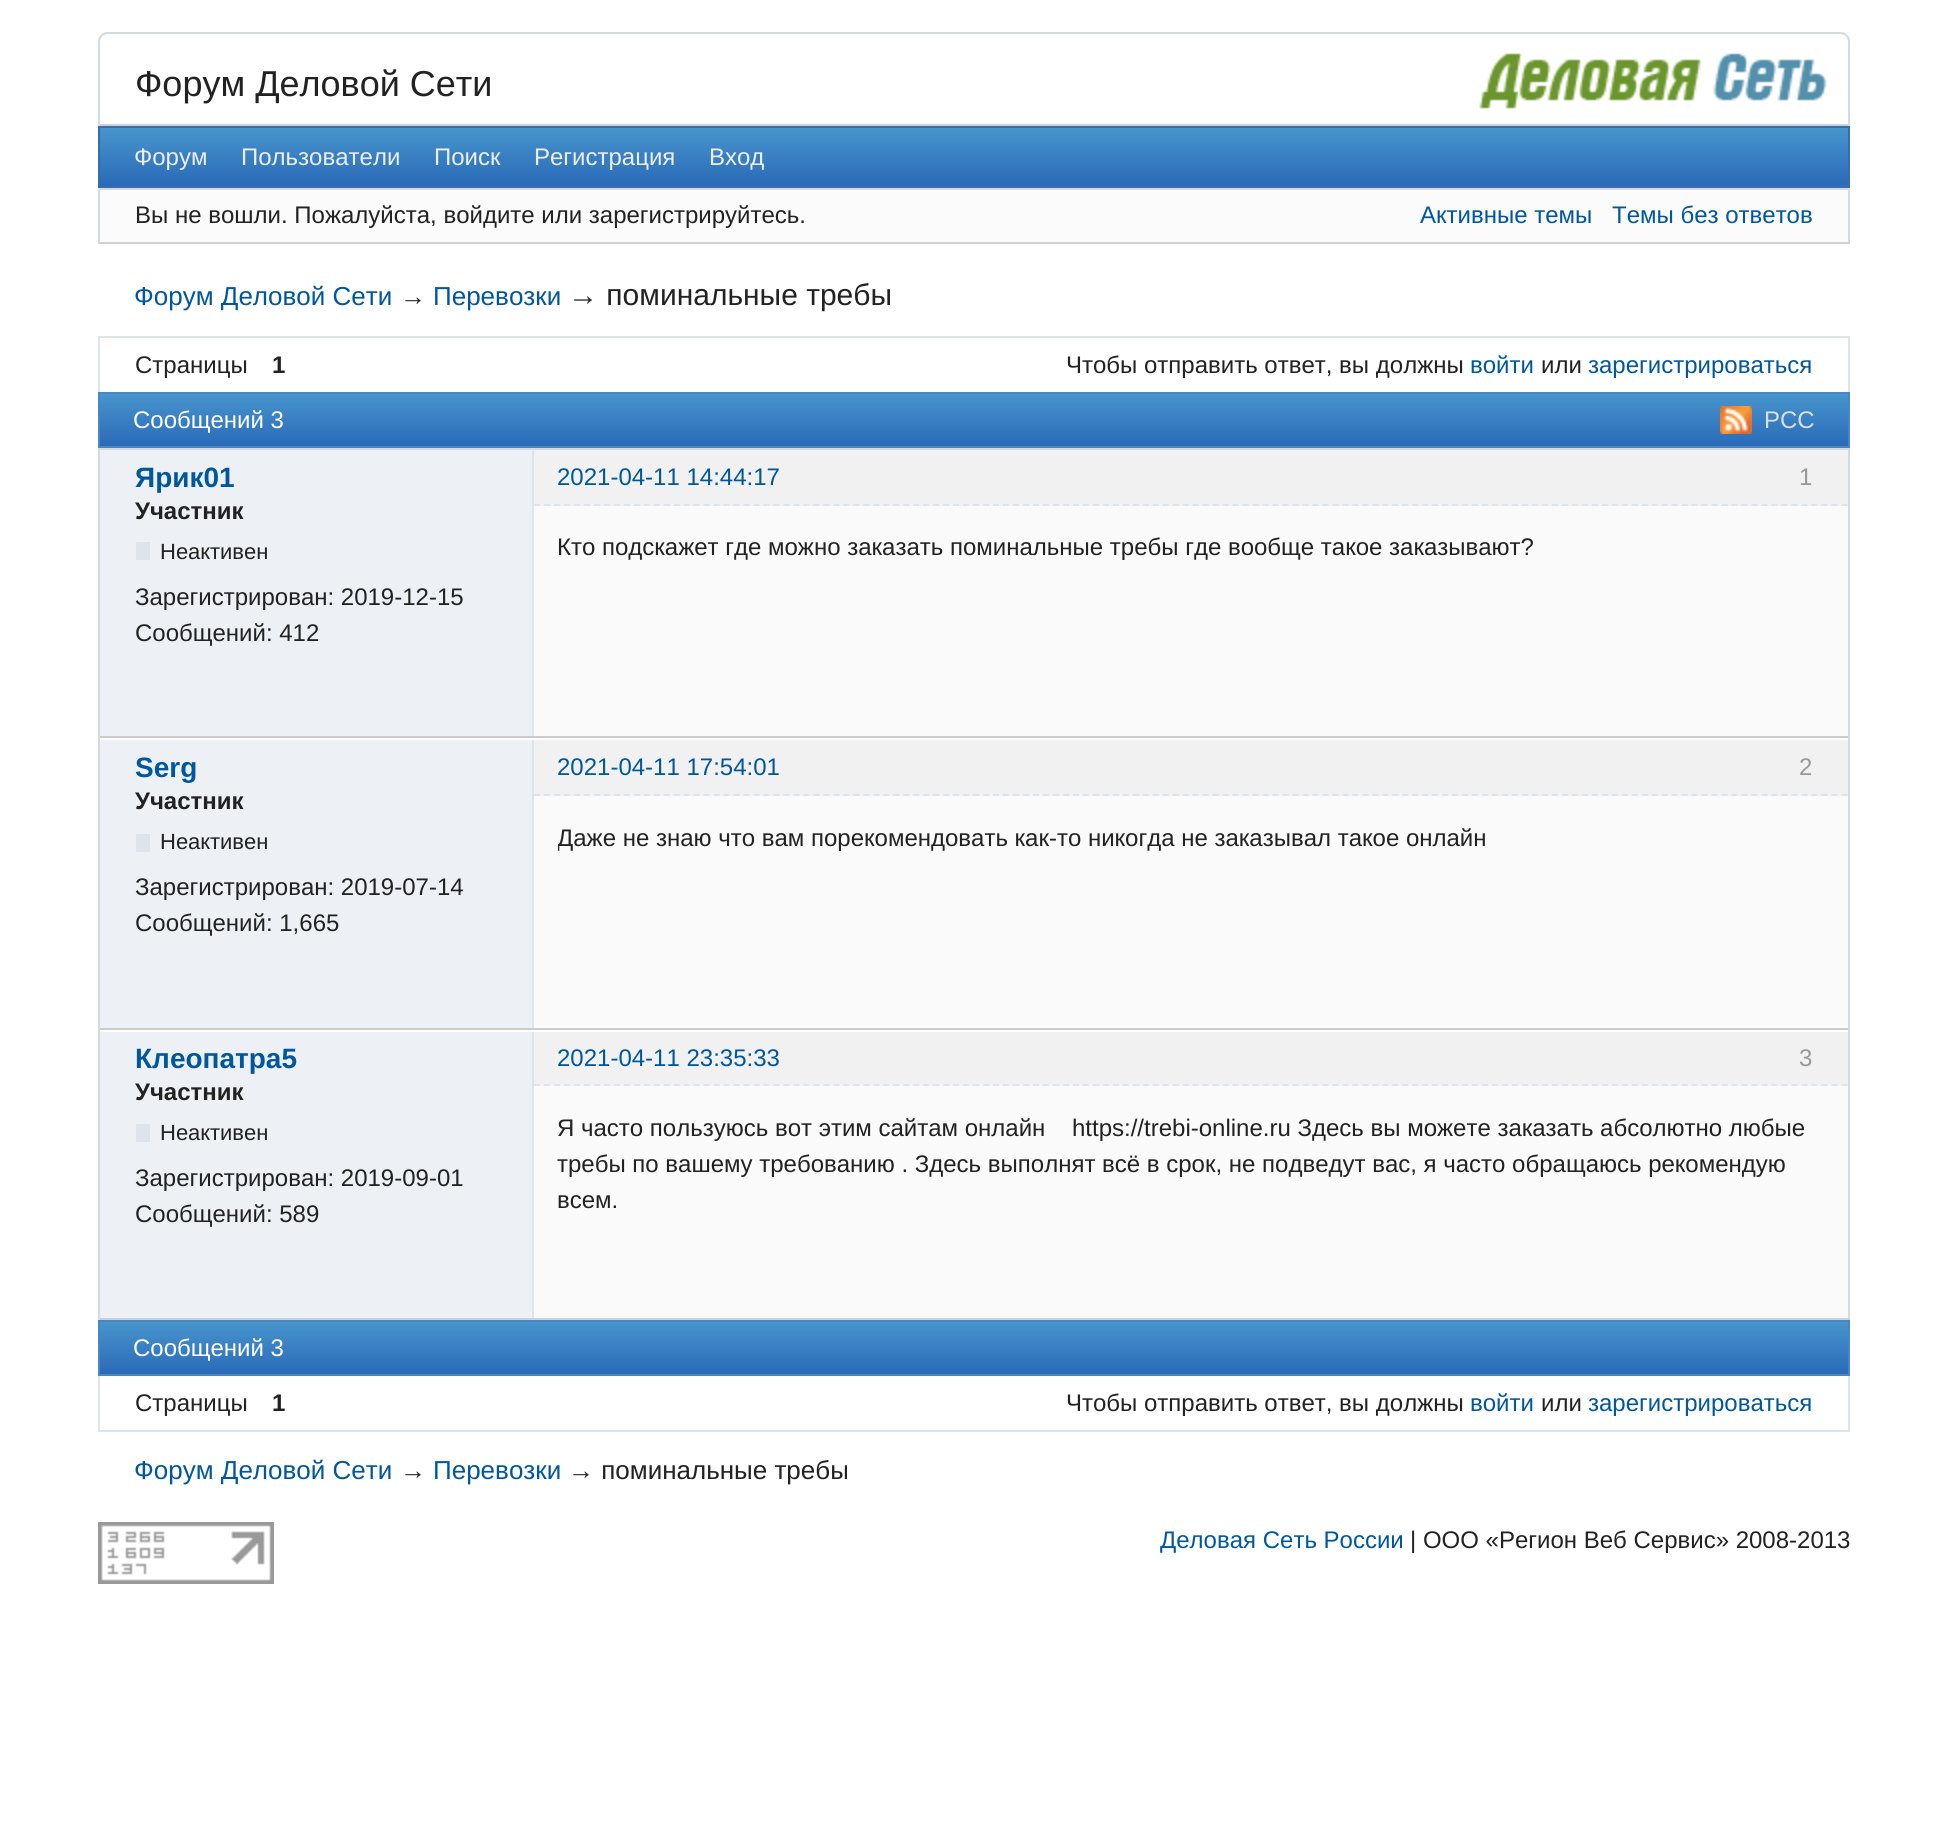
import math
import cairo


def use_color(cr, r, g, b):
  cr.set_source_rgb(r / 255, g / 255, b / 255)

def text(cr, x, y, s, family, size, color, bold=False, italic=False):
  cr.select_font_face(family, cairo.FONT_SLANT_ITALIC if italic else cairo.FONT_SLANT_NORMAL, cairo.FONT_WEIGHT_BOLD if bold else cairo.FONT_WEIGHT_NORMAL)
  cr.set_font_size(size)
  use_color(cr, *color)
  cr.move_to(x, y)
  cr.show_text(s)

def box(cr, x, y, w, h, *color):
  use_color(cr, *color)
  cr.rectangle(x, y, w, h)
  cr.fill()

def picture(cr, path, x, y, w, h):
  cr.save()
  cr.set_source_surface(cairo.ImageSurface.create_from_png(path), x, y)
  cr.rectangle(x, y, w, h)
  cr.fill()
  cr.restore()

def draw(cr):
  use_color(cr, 255, 255, 255)
  cr.paint()
  picture(cr, "img_01.png", 1479, 53, 348, 56)
  use_color(cr, 211, 218, 225)
  cr.new_path()
  cr.move_to(108, 32)
  cr.curve_to(105, 32, 102, 33, 101, 35)
  cr.line_to(102, 36)
  cr.curve_to(104, 35, 106, 34, 108, 34)
  cr.line_to(1840, 34)
  cr.curve_to(1842, 34, 1844, 35, 1846, 36)
  cr.line_to(1847, 35)
  cr.curve_to(1846, 33, 1843, 32, 1840, 32)
  cr.close_path()
  cr.fill()
  cr.new_path()
  cr.move_to(1850, 126)
  cr.line_to(1850, 42)
  cr.curve_to(1850, 39, 1849, 36, 1847, 35)
  cr.line_to(1846, 36)
  cr.curve_to(1847, 38, 1848, 40, 1848, 42)
  cr.line_to(1848, 124)
  cr.close_path()
  cr.fill()
  use_color(cr, 203, 209, 216)
  cr.new_path()
  cr.move_to(1850, 126)
  cr.line_to(1848, 124)
  cr.line_to(100, 124)
  cr.line_to(98, 126)
  cr.close_path()
  cr.fill()
  use_color(cr, 211, 218, 225)
  cr.new_path()
  cr.move_to(98, 126)
  cr.line_to(100, 124)
  cr.line_to(100, 42)
  cr.curve_to(100, 40, 101, 38, 102, 36)
  cr.line_to(101, 35)
  cr.curve_to(99, 36, 98, 39, 98, 42)
  cr.close_path()
  cr.fill()
  gradient = cairo.LinearGradient(974, 186, 974, 128)
  gradient.add_color_stop_rgba(0, 0.165, 0.416, 0.722, 1)
  gradient.add_color_stop_rgba(1, 0.278, 0.584, 0.8, 1)
  cr.set_source(gradient)
  cr.rectangle(100, 128, 1748, 58)
  cr.fill()
  cr.rectangle(99, 127, 1750, 60)
  use_color(cr, 55, 109, 170)
  cr.stroke()
  box(cr, 100, 190, 1748, 52, 251, 251, 251)
  box(cr, 98, 188, 1752, 2, 211, 218, 225)
  box(cr, 1848, 188, 2, 56, 211, 218, 225)
  box(cr, 98, 242, 1752, 2, 203, 209, 216)
  box(cr, 98, 188, 2, 56, 211, 218, 225)
  box(cr, 98, 336, 1752, 2, 221, 228, 235)
  box(cr, 1848, 336, 2, 56, 221, 228, 235)
  box(cr, 98, 336, 2, 56, 221, 228, 235)
  gradient = cairo.LinearGradient(974, 446, 974, 394)
  gradient.add_color_stop_rgba(0, 0.165, 0.416, 0.722, 1)
  gradient.add_color_stop_rgba(1, 0.278, 0.584, 0.8, 1)
  cr.set_source(gradient)
  cr.rectangle(100, 394, 1748, 52)
  cr.fill()
  cr.rectangle(99, 393, 1750, 54)
  use_color(cr, 74, 134, 193)
  cr.stroke()
  picture(cr, "img_02.png", 1720, 406, 32, 28)
  box(cr, 98, 448, 1752, 2, 211, 218, 225)
  box(cr, 1848, 448, 2, 872, 211, 218, 225)
  box(cr, 98, 1318, 1752, 2, 203, 209, 216)
  box(cr, 98, 448, 2, 872, 211, 218, 225)
  box(cr, 100, 450, 432, 286, 237, 241, 245)
  box(cr, 100, 736, 1748, 2, 204, 204, 204)
  box(cr, 534, 506, 1314, 230, 250, 250, 250)
  box(cr, 532, 450, 2, 286, 221, 228, 235)
  box(cr, 534, 450, 1314, 56, 241, 241, 241)
  cr.new_path()
  cr.move_to(534, 505)
  cr.line_to(1848, 505)
  use_color(cr, 221, 228, 235)
  cr.set_dash([6, 3.98])
  cr.stroke()
  box(cr, 136, 542, 14, 18, 221, 228, 235)
  box(cr, 100, 740, 432, 288, 237, 241, 245)
  box(cr, 100, 1028, 1748, 2, 204, 204, 204)
  box(cr, 534, 796, 1314, 232, 250, 250, 250)
  box(cr, 532, 740, 2, 288, 221, 228, 235)
  box(cr, 534, 740, 1314, 56, 241, 241, 241)
  cr.new_path()
  cr.move_to(534, 795)
  cr.line_to(1848, 795)
  use_color(cr, 221, 228, 235)
  cr.stroke()
  box(cr, 136, 834, 14, 18, 221, 228, 235)
  box(cr, 100, 1032, 432, 286, 237, 241, 245)
  box(cr, 534, 1086, 1314, 232, 250, 250, 250)
  box(cr, 532, 1032, 2, 286, 221, 228, 235)
  box(cr, 534, 1032, 1314, 54, 241, 241, 241)
  cr.new_path()
  cr.move_to(534, 1085)
  cr.line_to(1848, 1085)
  use_color(cr, 221, 228, 235)
  cr.stroke()
  box(cr, 136, 1124, 14, 18, 221, 228, 235)
  gradient = cairo.LinearGradient(974, 1374, 974, 1322)
  gradient.add_color_stop_rgba(0, 0.165, 0.416, 0.722, 1)
  gradient.add_color_stop_rgba(1, 0.278, 0.584, 0.8, 1)
  cr.set_source(gradient)
  cr.rectangle(100, 1322, 1748, 52)
  cr.fill()
  cr.rectangle(99, 1321, 1750, 54)
  use_color(cr, 74, 134, 193)
  cr.set_dash([])
  cr.stroke()
  box(cr, 1848, 1376, 2, 56, 221, 228, 235)
  box(cr, 98, 1430, 1752, 2, 221, 228, 235)
  box(cr, 98, 1376, 2, 56, 221, 228, 235)
  picture(cr, "img_03.png", 98, 1522, 176, 62)
  text(cr, 135, 96, "Форум Деловой Сети", "Liberation Sans", 36, (34, 34, 34))
  text(cr, 134, 165, "Форум", "Liberation Sans", 24, (238, 238, 238))
  text(cr, 241, 165, "Пользователи", "Liberation Sans", 24, (238, 238, 238))
  text(cr, 434, 165, "Поиск", "Liberation Sans", 24, (238, 238, 238))
  text(cr, 534, 165, "Регистрация", "Liberation Sans", 24, (238, 238, 238))
  text(cr, 709, 165, "Вход", "Liberation Sans", 24, (238, 238, 238))
  text(cr, 135, 223, "Вы не вошли. Пожалуйста, войдите или зарегистрируйтесь.", "Liberation Sans", 24, (34, 34, 34))
  text(cr, 1420, 223, "Активные темы", "Liberation Sans", 24, (0, 87, 156))
  text(cr, 1612, 223, "Темы без ответов", "Liberation Sans", 24, (0, 87, 156))
  text(cr, 134, 305, "Форум Деловой Сети", "Liberation Sans", 26, (0, 87, 156))
  text(cr, 400, 305, "→", "Liberation Sans", 26, (34, 34, 34))
  text(cr, 433, 305, "Перевозки", "Liberation Sans", 26, (0, 87, 156))
  text(cr, 568, 305, "→ поминальные требы", "Liberation Sans", 30, (34, 34, 34))
  text(cr, 135, 373, "Страницы", "Liberation Sans", 24, (34, 34, 34))
  text(cr, 272, 373, "1", "Liberation Sans", 24, (34, 34, 34), bold=True)
  text(cr, 1066, 373, "Чтобы отправить ответ, вы должны", "Liberation Sans", 24, (34, 34, 34))
  text(cr, 1470, 373, "войти", "Liberation Sans", 24, (0, 87, 156))
  text(cr, 1541, 373, "или", "Liberation Sans", 24, (34, 34, 34))
  text(cr, 1588, 373, "зарегистрироваться", "Liberation Sans", 24, (0, 87, 156))
  text(cr, 133, 428, "Сообщений 3", "Liberation Sans", 24, (255, 255, 255))
  text(cr, 1764, 428, "РСС", "Liberation Sans", 24, (221, 221, 221))
  text(cr, 135, 487, "Ярик01", "Liberation Sans", 28, (0, 87, 156), bold=True)
  text(cr, 557, 485, "2021-04-11 14:44:17", "Liberation Sans", 24, (0, 87, 156))
  text(cr, 1799, 485, "1", "Liberation Sans", 24, (153, 153, 153))
  text(cr, 135, 519, "Участник", "Liberation Sans", 24, (34, 34, 34), bold=True)
  text(cr, 160, 559, "Неактивен", "Liberation Sans", 22, (34, 34, 34))
  text(cr, 135, 605, "Зарегистрирован: 2019-12-15", "Liberation Sans", 24, (34, 34, 34))
  text(cr, 135, 641, "Сообщений: 412", "Liberation Sans", 24, (34, 34, 34))
  text(cr, 557, 555, "Кто подскажет где можно заказать поминальные требы где вообще такое заказывают?", "Liberation Sans", 24, (34, 34, 34))
  text(cr, 135, 777, "Serg", "Liberation Sans", 28, (0, 87, 156), bold=True)
  text(cr, 557, 775, "2021-04-11 17:54:01", "Liberation Sans", 24, (0, 87, 156))
  text(cr, 1799, 775, "2", "Liberation Sans", 24, (153, 153, 153))
  text(cr, 135, 809, "Участник", "Liberation Sans", 24, (34, 34, 34), bold=True)
  text(cr, 160, 849, "Неактивен", "Liberation Sans", 22, (34, 34, 34))
  text(cr, 135, 895, "Зарегистрирован: 2019-07-14", "Liberation Sans", 24, (34, 34, 34))
  text(cr, 135, 931, "Сообщений: 1,665", "Liberation Sans", 24, (34, 34, 34))
  cr.save()
  cr.rectangle(558, 812, 1254, 216)
  cr.clip()
  text(cr, 557, 846, "Даже не знаю что вам порекомендовать как-то никогда не заказывал такое онлайн", "Liberation Sans", 24, (34, 34, 34))
  cr.restore()
  text(cr, 135, 1068, "Клеопатра5", "Liberation Sans", 28, (0, 87, 156), bold=True)
  text(cr, 557, 1066, "2021-04-11 23:35:33", "Liberation Sans", 24, (0, 87, 156))
  text(cr, 1799, 1066, "3", "Liberation Sans", 24, (153, 153, 153))
  text(cr, 135, 1100, "Участник", "Liberation Sans", 24, (34, 34, 34), bold=True)
  text(cr, 160, 1140, "Неактивен", "Liberation Sans", 22, (34, 34, 34))
  text(cr, 135, 1186, "Зарегистрирован: 2019-09-01", "Liberation Sans", 24, (34, 34, 34))
  text(cr, 135, 1222, "Сообщений: 589", "Liberation Sans", 24, (34, 34, 34))
  text(cr, 557, 1136, "Я часто пользуюсь вот этим сайтам онлайн    https://trebi-online.ru Здесь вы можете заказать абсолютно любые", "Liberation Sans", 24, (34, 34, 34))
  text(cr, 557, 1172, "требы по вашему требованию . Здесь выполнят всё в срок, не подведут вас, я часто обращаюсь рекомендую", "Liberation Sans", 24, (34, 34, 34))
  text(cr, 557, 1208, "всем.", "Liberation Sans", 24, (34, 34, 34))
  text(cr, 133, 1356, "Сообщений 3", "Liberation Sans", 24, (255, 255, 255))
  text(cr, 135, 1411, "Страницы", "Liberation Sans", 24, (34, 34, 34))
  text(cr, 272, 1411, "1", "Liberation Sans", 24, (34, 34, 34), bold=True)
  text(cr, 1066, 1411, "Чтобы отправить ответ, вы должны", "Liberation Sans", 24, (34, 34, 34))
  text(cr, 1470, 1411, "войти", "Liberation Sans", 24, (0, 87, 156))
  text(cr, 1541, 1411, "или", "Liberation Sans", 24, (34, 34, 34))
  text(cr, 1588, 1411, "зарегистрироваться", "Liberation Sans", 24, (0, 87, 156))
  text(cr, 134, 1479, "Форум Деловой Сети", "Liberation Sans", 26, (0, 87, 156))
  text(cr, 400, 1479, "→", "Liberation Sans", 26, (34, 34, 34))
  text(cr, 433, 1479, "Перевозки", "Liberation Sans", 26, (0, 87, 156))
  text(cr, 568, 1479, "→ поминальные требы", "Liberation Sans", 26, (34, 34, 34))
  text(cr, 1160, 1548, "Деловая Сеть России", "Liberation Sans", 24, (0, 87, 156))
  text(cr, 1410, 1548, "| ООО «Регион Веб Сервис» 2008-2013", "Liberation Sans", 24, (34, 34, 34))


surface = cairo.ImageSurface(cairo.FORMAT_RGB24, 1947, 1824)
cr = cairo.Context(surface)
options = cairo.FontOptions()
options.set_hint_metrics(cairo.HINT_METRICS_OFF)
options.set_hint_style(cairo.HINT_STYLE_NONE)
cr.set_font_options(options)
cr.set_miter_limit(4)
draw(cr)
surface.write_to_png("out.png")
